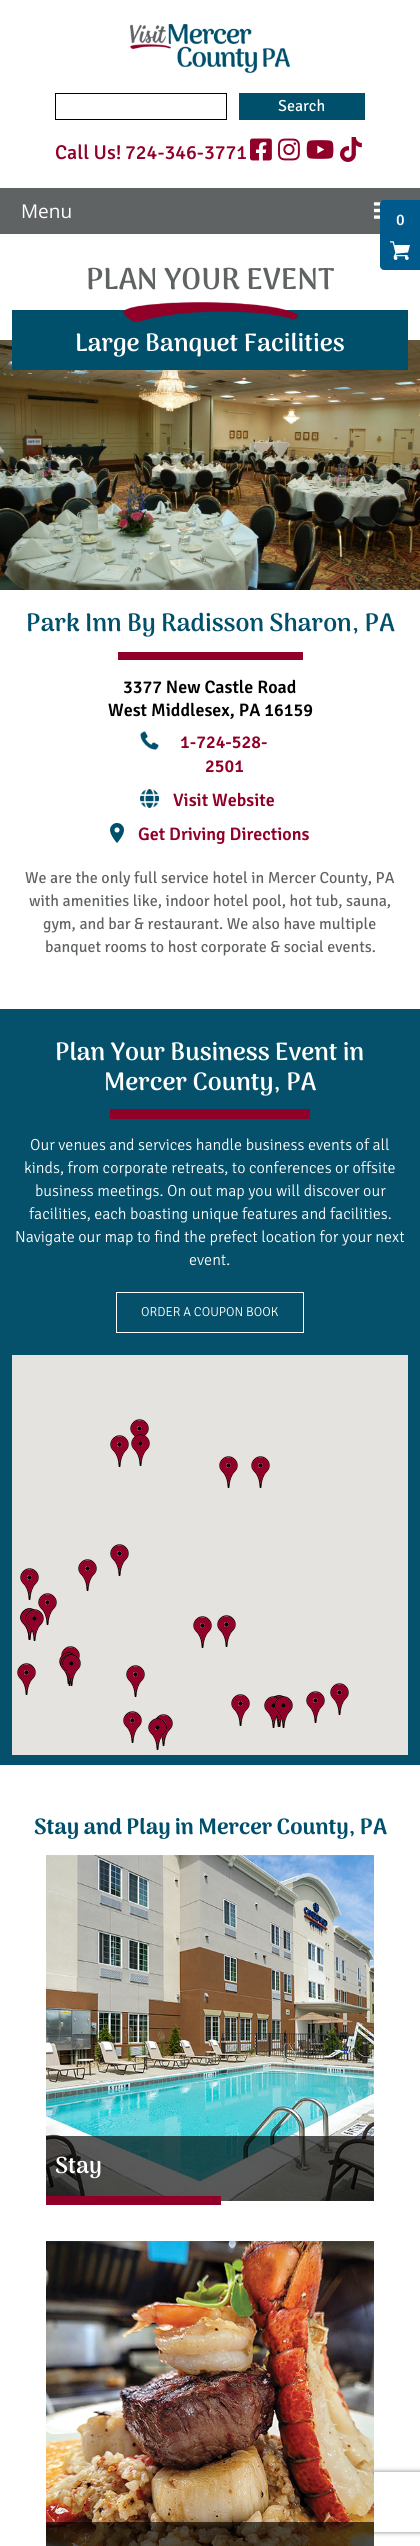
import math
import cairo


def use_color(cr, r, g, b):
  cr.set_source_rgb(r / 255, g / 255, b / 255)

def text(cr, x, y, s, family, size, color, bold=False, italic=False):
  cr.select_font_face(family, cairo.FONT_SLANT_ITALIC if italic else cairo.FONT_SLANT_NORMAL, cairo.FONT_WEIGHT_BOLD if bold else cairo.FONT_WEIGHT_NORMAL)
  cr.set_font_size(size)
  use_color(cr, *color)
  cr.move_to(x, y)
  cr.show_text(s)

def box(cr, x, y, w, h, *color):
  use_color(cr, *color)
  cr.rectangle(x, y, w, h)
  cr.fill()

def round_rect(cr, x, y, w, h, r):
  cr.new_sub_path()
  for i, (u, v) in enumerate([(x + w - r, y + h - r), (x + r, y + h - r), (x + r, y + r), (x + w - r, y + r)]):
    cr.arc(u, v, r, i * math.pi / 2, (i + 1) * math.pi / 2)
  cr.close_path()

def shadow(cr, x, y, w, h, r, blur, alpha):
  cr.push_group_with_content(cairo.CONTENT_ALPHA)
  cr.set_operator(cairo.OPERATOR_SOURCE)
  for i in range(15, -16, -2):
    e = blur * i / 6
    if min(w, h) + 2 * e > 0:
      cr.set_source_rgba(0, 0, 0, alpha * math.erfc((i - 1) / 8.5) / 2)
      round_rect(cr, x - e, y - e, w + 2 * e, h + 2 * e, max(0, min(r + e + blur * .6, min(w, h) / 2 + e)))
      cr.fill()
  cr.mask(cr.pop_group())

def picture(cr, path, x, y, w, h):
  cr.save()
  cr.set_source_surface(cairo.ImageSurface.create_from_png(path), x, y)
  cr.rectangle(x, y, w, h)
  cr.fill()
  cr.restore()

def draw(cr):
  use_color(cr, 255, 255, 255)
  cr.paint()
  picture(cr, "img_01.png", 130, 24, 160, 49)
  cr.rectangle(55.5, 93.5, 171, 26)
  use_color(cr, 0, 0, 0)
  cr.set_line_width(1)
  cr.stroke()
  box(cr, 239, 93, 126, 27, 0, 79, 107)
  picture(cr, "img_02.png", 250, 138, 22, 23)
  picture(cr, "img_03.png", 278, 138, 22, 23)
  picture(cr, "img_04.png", 306, 140, 28, 19)
  picture(cr, "img_05.png", 340, 137, 22, 25)
  box(cr, 0, 188, 420, 46, 96, 99, 99)
  picture(cr, "img_06.png", 373, 202, 8, 17)
  use_color(cr, 0, 90, 139)
  cr.new_path()
  cr.move_to(384, 200)
  cr.line_to(420, 200)
  cr.line_to(420, 270)
  cr.line_to(384, 270)
  cr.curve_to(382, 270, 380, 268, 380, 266)
  cr.line_to(380, 204)
  cr.curve_to(380, 202, 382, 200, 384, 200)
  cr.close_path()
  cr.fill()
  picture(cr, "img_07.png", 390, 241, 20, 19)
  picture(cr, "img_09.png", 0, 340, 420, 250)
  box(cr, 12, 310, 396, 60, 0, 79, 107)
  picture(cr, "img_08.png", 123, 302, 175, 20)
  box(cr, 118, 652, 185, 8, 144, 0, 40)
  picture(cr, "img_10.png", 140, 731, 19, 19)
  picture(cr, "img_11.png", 140, 789, 19, 19)
  picture(cr, "img_12.png", 110, 823, 14, 20)
  box(cr, 0, 1009, 420, 756, 5, 80, 106)
  box(cr, 110, 1109, 200, 10, 144, 0, 40)
  cr.rectangle(116.5, 1292.5, 187, 40)
  use_color(cr, 255, 255, 255)
  cr.stroke()
  box(cr, 12, 1355, 396, 400, 229, 227, 223)
  picture(cr, "img_13.png", 130, 1419, 19, 27)
  picture(cr, "img_14.png", 110, 1435, 19, 32)
  picture(cr, "img_15.png", 131, 1434, 19, 32)
  picture(cr, "img_14.png", 219, 1456, 19, 32)
  picture(cr, "img_14.png", 251, 1456, 19, 32)
  picture(cr, "img_14.png", 20, 1568, 19, 32)
  picture(cr, "img_14.png", 78, 1559, 19, 32)
  picture(cr, "img_14.png", 110, 1544, 19, 32)
  picture(cr, "img_16.png", 20, 1608, 16, 32)
  picture(cr, "img_14.png", 38, 1593, 19, 32)
  picture(cr, "img_17.png", 20, 1608, 17, 32)
  picture(cr, "img_18.png", 25, 1609, 19, 32)
  picture(cr, "img_14.png", 193, 1616, 19, 32)
  picture(cr, "img_14.png", 217, 1615, 19, 32)
  picture(cr, "img_19.png", 61, 1646, 19, 16)
  picture(cr, "img_20.png", 59, 1652, 19, 32)
  picture(cr, "img_21.png", 60, 1654, 18, 32)
  picture(cr, "img_14.png", 17, 1663, 19, 32)
  picture(cr, "img_22.png", 62, 1654, 19, 32)
  picture(cr, "img_14.png", 126, 1665, 19, 32)
  picture(cr, "img_14.png", 231, 1694, 19, 32)
  picture(cr, "img_23.png", 271, 1695, 14, 32)
  picture(cr, "img_14.png", 306, 1691, 19, 32)
  picture(cr, "img_14.png", 330, 1683, 19, 32)
  picture(cr, "img_24.png", 271, 1695, 16, 32)
  picture(cr, "img_14.png", 123, 1711, 19, 32)
  picture(cr, "img_25.png", 155, 1714, 18, 32)
  picture(cr, "img_26.png", 264, 1696, 19, 32)
  picture(cr, "img_27.png", 274, 1696, 19, 32)
  picture(cr, "img_28.png", 148, 1718, 19, 32)
  picture(cr, "img_29.png", 46, 1855, 328, 346)
  cr.set_source_rgba(0, 0, 0, 0.65)
  cr.rectangle(46, 2136, 328, 65)
  cr.fill()
  box(cr, 46, 2196, 175, 9, 144, 0, 40)
  cr.save()
  cr.set_fill_rule(cairo.FILL_RULE_EVEN_ODD)
  cr.new_path()
  cr.move_to(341, 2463)
  cr.line_to(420, 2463)
  cr.line_to(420, 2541)
  cr.line_to(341, 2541)
  cr.close_path()
  cr.move_to(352, 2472)
  cr.line_to(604, 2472)
  cr.curve_to(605, 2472, 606, 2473, 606, 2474)
  cr.line_to(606, 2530)
  cr.curve_to(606, 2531, 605, 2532, 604, 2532)
  cr.line_to(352, 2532)
  cr.curve_to(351, 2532, 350, 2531, 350, 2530)
  cr.line_to(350, 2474)
  cr.curve_to(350, 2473, 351, 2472, 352, 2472)
  cr.close_path()
  cr.clip()
  use_color(cr, 128, 128, 128)
  shadow(cr, 350, 2472, 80, 60, 2, 2.5, 1)
  cr.restore()
  picture(cr, "img_30.png", 46, 2241, 328, 305)
  cr.set_source_rgba(0, 0, 0, 0.65)
  cr.rectangle(46, 2522, 328, 24)
  cr.fill()
  text(cr, 278, 111, "Search", "Signika Negative", 16, (255, 255, 255))
  text(cr, 55, 159, "Call Us!", "Signika Negative Medium", 20, (144, 0, 40))
  text(cr, 125, 159, "724-346-3771", "Signika Negative Medium", 20, (144, 0, 40))
  text(cr, 21, 218, "Menu", "Open Sans", 19, (255, 255, 255))
  text(cr, 396, 225, "0", "Signika Negative Medium", 16, (255, 255, 255))
  text(cr, 86, 289, "PLAN YOUR EVENT", "Arima SemiBold", 30, (96, 99, 99))
  text(cr, 75, 351, "Large Banquet Facilities", "Arima SemiBold", 25, (255, 255, 255))
  text(cr, 26, 631, "Park Inn By Radisson Sharon, PA", "Arima SemiBold", 25, (0, 79, 107))
  text(cr, 123, 693, "3377 New Castle Road", "Signika Negative SemiBold", 18, (0, 0, 0))
  text(cr, 108, 716, "West Middlesex, PA 16159", "Signika Negative SemiBold", 18, (0, 0, 0))
  text(cr, 180, 748, "1-724-528-", "Signika Negative SemiBold", 18, (144, 0, 40))
  text(cr, 205, 772, "2501", "Signika Negative SemiBold", 18, (144, 0, 40))
  text(cr, 173, 806, "Visit Website", "Signika Negative SemiBold", 18, (144, 0, 40))
  text(cr, 138, 840, "Get Driving Directions", "Signika Negative SemiBold", 18, (144, 0, 40))
  text(cr, 25, 883, "We are the only full service hotel in Mercer County, PA", "Signika Negative", 16, (96, 99, 99))
  text(cr, 29, 906, "with amenities like, indoor hotel pool, hot tub, sauna,", "Signika Negative", 16, (96, 99, 99))
  text(cr, 43, 929, "gym, and bar & restaurant. We also have multiple", "Signika Negative", 16, (96, 99, 99))
  text(cr, 45, 952, "banquet rooms to host corporate & social events.", "Signika Negative", 16, (96, 99, 99))
  text(cr, 55, 1060, "Plan Your Business Event in", "Arima SemiBold", 25, (255, 255, 255))
  text(cr, 104, 1090, "Mercer County, PA", "Arima SemiBold", 25, (255, 255, 255))
  text(cr, 30, 1150, "Our venues and services handle business events of all", "Signika Negative Light", 16, (255, 255, 255))
  text(cr, 24, 1173, "kinds, from corporate retreats, to conferences or offsite", "Signika Negative Light", 16, (255, 255, 255))
  text(cr, 35, 1196, "business meetings. On out map you will discover our", "Signika Negative Light", 16, (255, 255, 255))
  text(cr, 29, 1219, "facilities, each boasting unique features and facilities.", "Signika Negative Light", 16, (255, 255, 255))
  text(cr, 15, 1242, "Navigate our map to find the prefect location for your next", "Signika Negative Light", 16, (255, 255, 255))
  text(cr, 189, 1265, "event.", "Signika Negative Light", 16, (255, 255, 255))
  text(cr, 141, 1316, "ORDER A COUPON BOOK", "Signika Negative Light", 13, (255, 255, 255))
  text(cr, 34, 1834, "Stay and Play in Mercer County, PA", "Arima", 22, (0, 79, 107), bold=True)
  text(cr, 55, 2173, "Stay", "Arima SemiBold", 23, (255, 255, 255))


surface = cairo.ImageSurface(cairo.FORMAT_RGB24, 420, 2546)
cr = cairo.Context(surface)
options = cairo.FontOptions()
options.set_hint_metrics(cairo.HINT_METRICS_OFF)
options.set_hint_style(cairo.HINT_STYLE_NONE)
cr.set_font_options(options)
cr.set_miter_limit(4)
draw(cr)
surface.write_to_png("out.png")
